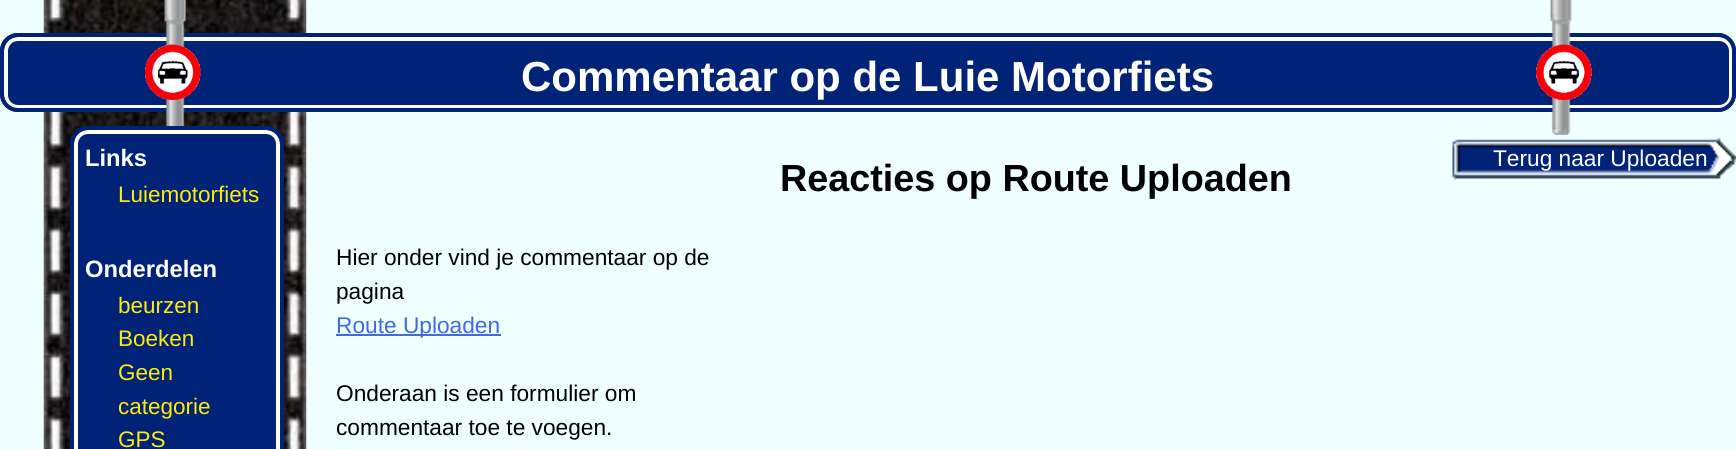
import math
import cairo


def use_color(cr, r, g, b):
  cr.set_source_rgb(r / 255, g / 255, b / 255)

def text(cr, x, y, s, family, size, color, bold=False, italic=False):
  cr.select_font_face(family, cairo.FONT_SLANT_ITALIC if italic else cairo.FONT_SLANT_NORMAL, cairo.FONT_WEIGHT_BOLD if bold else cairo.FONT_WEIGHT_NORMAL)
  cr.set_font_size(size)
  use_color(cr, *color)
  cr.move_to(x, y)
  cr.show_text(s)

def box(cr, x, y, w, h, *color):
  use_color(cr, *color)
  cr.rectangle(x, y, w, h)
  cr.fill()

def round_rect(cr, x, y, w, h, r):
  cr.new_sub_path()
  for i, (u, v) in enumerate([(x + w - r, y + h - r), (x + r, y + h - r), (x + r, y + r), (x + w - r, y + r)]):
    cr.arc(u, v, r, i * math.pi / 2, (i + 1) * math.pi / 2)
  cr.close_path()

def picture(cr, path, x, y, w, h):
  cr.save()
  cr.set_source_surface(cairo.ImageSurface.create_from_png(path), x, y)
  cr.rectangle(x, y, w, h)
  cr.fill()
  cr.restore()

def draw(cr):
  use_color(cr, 239, 255, 255)
  cr.paint()
  picture(cr, "img_01.png", 43, 0, 264, 449)
  use_color(cr, 0, 34, 119)
  round_rect(cr, 0, 33, 1736, 79, 18)
  cr.fill()
  round_rect(cr, 6, 39, 1725, 68, 12)
  use_color(cr, 255, 255, 240)
  cr.set_line_width(4)
  cr.stroke()
  round_rect(cr, 2, 35, 1732, 75, 16)
  use_color(cr, 0, 34, 119)
  cr.stroke()
  picture(cr, "img_02.png", 164, 0, 22, 126)
  picture(cr, "img_03.png", 145, 44, 56, 56)
  picture(cr, "img_05.png", 1550, 0, 22, 135)
  picture(cr, "img_04.png", 1536, 44, 56, 56)
  round_rect(cr, 70, 126, 214, 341, 18)
  cr.fill()
  round_rect(cr, 76, 132, 202, 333, 12)
  use_color(cr, 255, 255, 240)
  cr.stroke()
  round_rect(cr, 72, 128, 210, 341, 16)
  use_color(cr, 0, 34, 119)
  cr.stroke()
  picture(cr, "img_06.png", 1450, 137, 286, 44)
  box(cr, 336, 334, 165, 2, 65, 105, 225)
  text(cr, 521, 91, "Commentaar op de Luie Motorfiets", "Liberation Sans", 42, (255, 255, 255), bold=True)
  text(cr, 85, 166, "Links", "Liberation Sans", 23.75, (255, 255, 255), bold=True)
  text(cr, 118, 202, "Luiemotorfiets", "Liberation Sans", 22.5, (255, 235, 13))
  text(cr, 85, 277, "Onderdelen", "Liberation Sans", 23.75, (255, 255, 255), bold=True)
  text(cr, 118, 313, "beurzen", "Liberation Sans", 22.5, (255, 235, 13))
  text(cr, 118, 346, "Boeken", "Liberation Sans", 22.5, (255, 235, 13))
  text(cr, 118, 380, "Geen", "Liberation Sans", 22.5, (255, 235, 13))
  text(cr, 118, 414, "categorie", "Liberation Sans", 22.5, (255, 235, 13))
  text(cr, 118, 447, "GPS", "Liberation Sans", 22.5, (255, 235, 13))
  text(cr, 1493, 166, "Terug naar Uploaden", "Liberation Sans", 22.7, (255, 255, 255))
  text(cr, 336, 265, "Hier onder vind je commentaar op de", "Liberation Sans", 22.7, (0, 0, 0))
  text(cr, 336, 299, "pagina", "Liberation Sans", 22.7, (0, 0, 0))
  text(cr, 336, 333, "Route Uploaden", "Liberation Sans", 22.7, (65, 105, 225))
  text(cr, 336, 401, "Onderaan is een formulier om", "Liberation Sans", 22.7, (0, 0, 0))
  text(cr, 336, 435, "commentaar toe te voegen.", "Liberation Sans", 22.7, (0, 0, 0))
  text(cr, 780, 191, "Reacties op Route Uploaden", "Liberation Sans", 37.75, (0, 0, 0), bold=True)


surface = cairo.ImageSurface(cairo.FORMAT_RGB24, 1736, 449)
cr = cairo.Context(surface)
options = cairo.FontOptions()
options.set_hint_metrics(cairo.HINT_METRICS_OFF)
options.set_hint_style(cairo.HINT_STYLE_NONE)
cr.set_font_options(options)
cr.set_miter_limit(4)
draw(cr)
surface.write_to_png("out.png")
